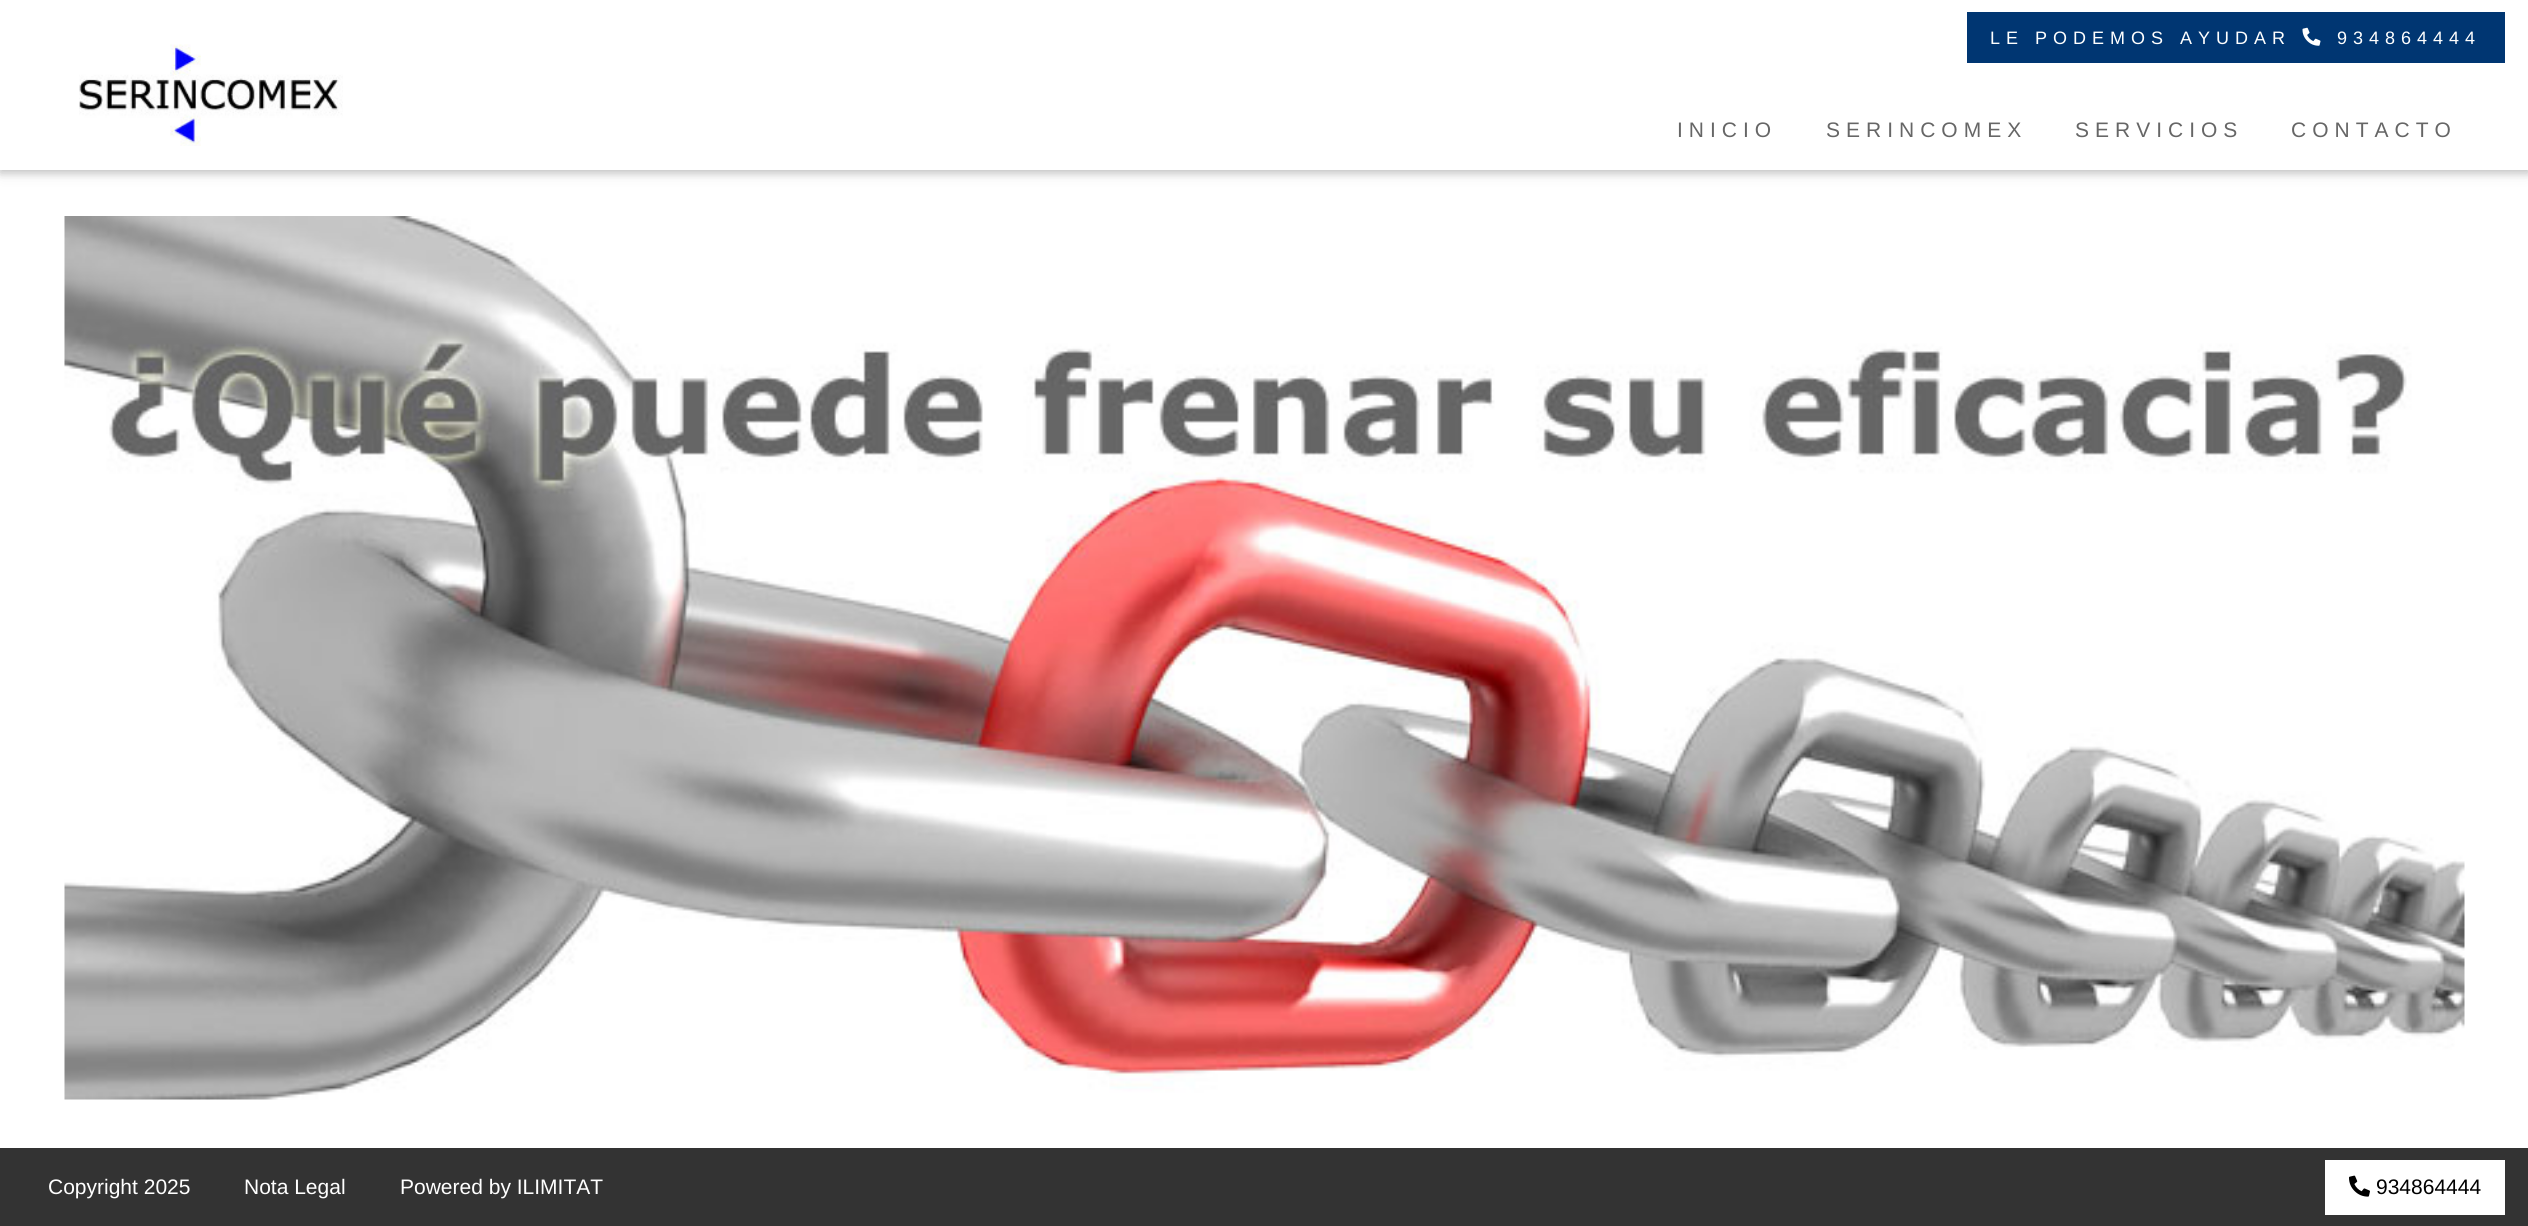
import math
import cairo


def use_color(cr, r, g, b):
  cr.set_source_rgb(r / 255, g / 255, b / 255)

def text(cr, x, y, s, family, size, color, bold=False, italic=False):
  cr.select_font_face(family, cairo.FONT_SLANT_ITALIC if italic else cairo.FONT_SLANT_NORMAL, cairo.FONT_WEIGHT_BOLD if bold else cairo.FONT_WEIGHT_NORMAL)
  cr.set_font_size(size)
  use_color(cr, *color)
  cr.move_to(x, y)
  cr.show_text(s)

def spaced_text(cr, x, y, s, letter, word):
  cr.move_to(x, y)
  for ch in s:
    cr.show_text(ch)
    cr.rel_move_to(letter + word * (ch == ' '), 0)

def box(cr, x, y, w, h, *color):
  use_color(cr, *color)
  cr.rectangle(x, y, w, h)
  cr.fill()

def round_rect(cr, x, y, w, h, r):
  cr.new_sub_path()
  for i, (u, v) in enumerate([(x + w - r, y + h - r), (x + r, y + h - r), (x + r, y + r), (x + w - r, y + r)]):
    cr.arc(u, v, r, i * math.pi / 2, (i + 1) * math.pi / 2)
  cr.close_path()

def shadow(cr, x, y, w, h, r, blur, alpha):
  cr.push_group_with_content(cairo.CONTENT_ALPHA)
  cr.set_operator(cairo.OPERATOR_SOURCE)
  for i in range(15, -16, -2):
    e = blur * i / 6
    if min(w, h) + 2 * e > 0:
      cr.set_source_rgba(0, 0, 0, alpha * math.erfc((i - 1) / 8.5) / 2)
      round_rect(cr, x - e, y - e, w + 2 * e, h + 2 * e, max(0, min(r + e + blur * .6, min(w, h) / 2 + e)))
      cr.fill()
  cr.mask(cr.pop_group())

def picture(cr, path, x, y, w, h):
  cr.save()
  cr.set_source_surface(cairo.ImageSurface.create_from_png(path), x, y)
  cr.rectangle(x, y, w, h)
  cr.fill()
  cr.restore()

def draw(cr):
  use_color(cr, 255, 255, 255)
  cr.paint()
  use_color(cr, 0, 0, 0)
  shadow(cr, 0, 3, 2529, 170, 0, 7.5, 0.12)
  shadow(cr, 0, 3, 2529, 170, 0, 4, 0.16)
  box(cr, 0, 0, 2528, 170, 255, 255, 255)
  box(cr, 1967, 12, 538, 51, 0, 54, 114)
  picture(cr, "img_01.png", 2302, 27, 19, 19)
  picture(cr, "img_02.png", 79, 44, 264, 102)
  picture(cr, "img_03.png", 64, 216, 2401, 884)
  box(cr, 0, 1148, 2528, 78, 51, 51, 51)
  box(cr, 2325, 1160, 180, 55, 255, 255, 255)
  picture(cr, "img_04.png", 2349, 1175, 21, 22)
  cr.select_font_face("Liberation Sans")
  cr.set_font_size(18)
  spaced_text(cr, 1990, 44, "LE PODEMOS AYUDAR", 6, 0)
  spaced_text(cr, 2337, 44, "934864444", 6, 0)
  cr.set_font_size(21)
  use_color(cr, 102, 102, 102)
  spaced_text(cr, 1677, 137, "INICIO", 6, 0)
  spaced_text(cr, 1826, 137, "SERINCOMEX", 6, 0)
  spaced_text(cr, 2075, 137, "SERVICIOS", 6, 0)
  spaced_text(cr, 2291, 137, "CONTACTO", 6, 0)
  text(cr, 48, 1194, "Copyright 2025", "Liberation Sans", 21, (255, 255, 255))
  text(cr, 244, 1194, "Nota Legal", "Liberation Sans", 21, (255, 255, 255))
  text(cr, 400, 1194, "Powered by ILIMITAT", "Liberation Sans", 21, (255, 255, 255))
  text(cr, 2376, 1194, "934864444", "Liberation Sans", 21, (0, 0, 0))


surface = cairo.ImageSurface(cairo.FORMAT_RGB24, 2528, 1226)
cr = cairo.Context(surface)
options = cairo.FontOptions()
options.set_hint_metrics(cairo.HINT_METRICS_OFF)
options.set_hint_style(cairo.HINT_STYLE_NONE)
cr.set_font_options(options)
cr.set_miter_limit(4)
draw(cr)
surface.write_to_png("out.png")
